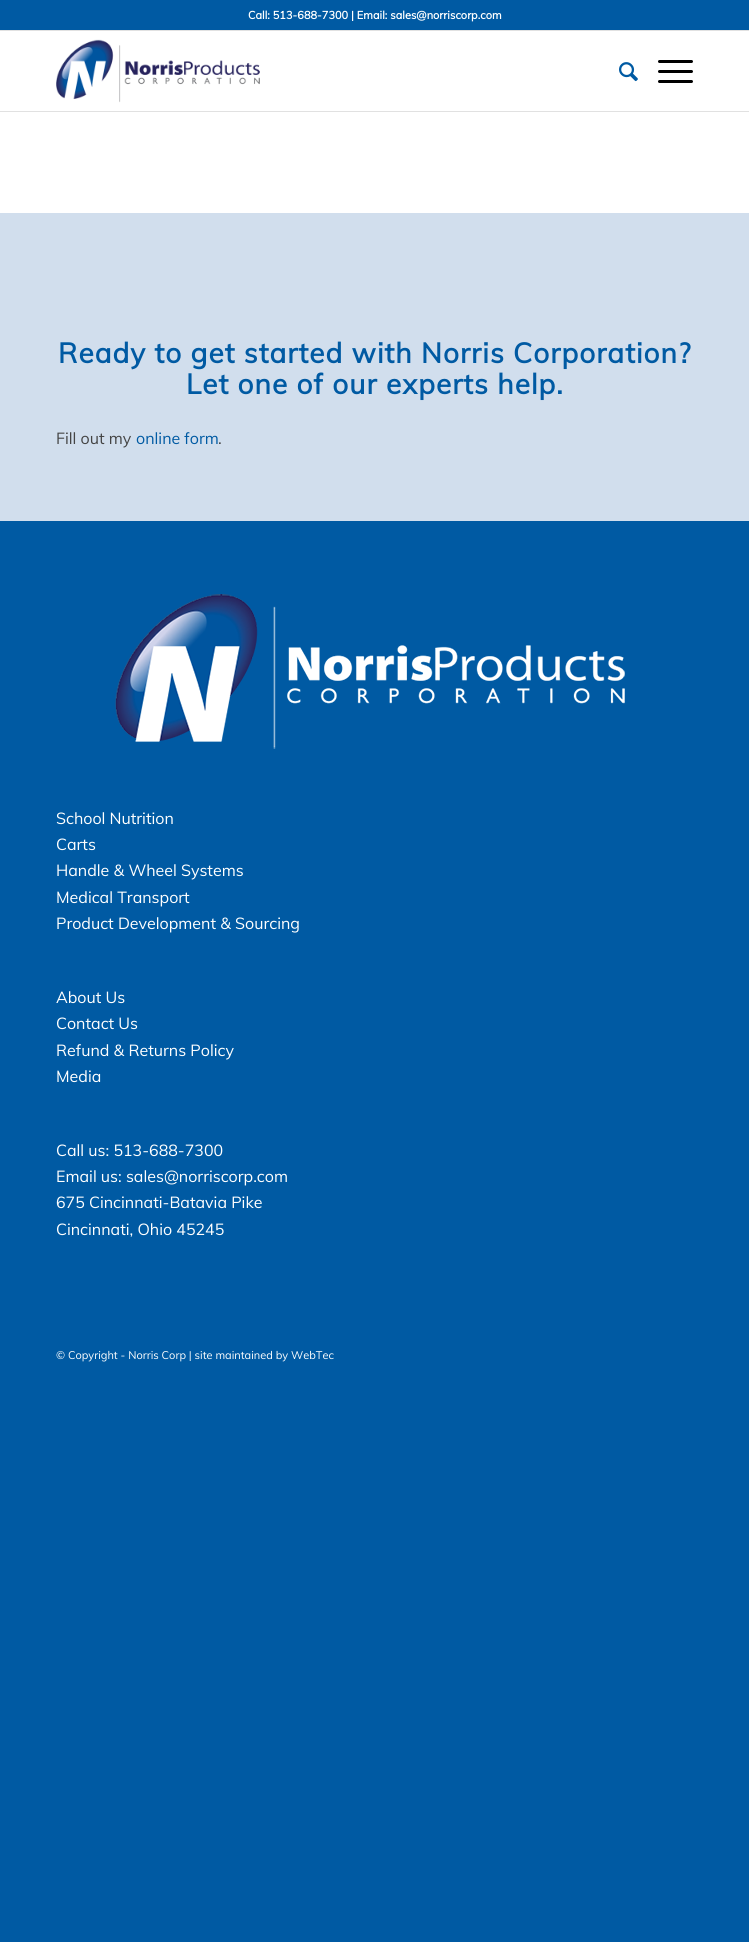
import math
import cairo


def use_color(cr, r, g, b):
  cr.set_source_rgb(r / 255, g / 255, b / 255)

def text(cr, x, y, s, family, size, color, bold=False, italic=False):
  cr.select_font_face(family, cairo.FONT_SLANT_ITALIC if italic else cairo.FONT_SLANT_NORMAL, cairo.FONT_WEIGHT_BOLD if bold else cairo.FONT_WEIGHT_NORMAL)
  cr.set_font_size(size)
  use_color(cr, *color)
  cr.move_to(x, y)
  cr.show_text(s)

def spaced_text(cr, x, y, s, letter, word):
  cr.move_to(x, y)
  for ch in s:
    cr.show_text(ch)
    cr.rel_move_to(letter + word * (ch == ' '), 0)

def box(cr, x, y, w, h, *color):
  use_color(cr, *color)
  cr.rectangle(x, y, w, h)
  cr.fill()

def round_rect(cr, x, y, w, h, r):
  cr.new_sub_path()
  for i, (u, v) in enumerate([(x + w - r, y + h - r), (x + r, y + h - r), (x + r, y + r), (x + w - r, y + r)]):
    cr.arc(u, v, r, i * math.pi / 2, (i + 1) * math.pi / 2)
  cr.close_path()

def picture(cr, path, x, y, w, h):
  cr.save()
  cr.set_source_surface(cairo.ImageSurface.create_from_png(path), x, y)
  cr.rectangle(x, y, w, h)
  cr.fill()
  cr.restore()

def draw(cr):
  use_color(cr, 0, 90, 163)
  cr.paint()
  box(cr, 0, 31, 749, 182, 255, 255, 255)
  box(cr, 0, 30, 749, 1, 225, 225, 225)
  box(cr, 0, 111, 749, 1, 225, 225, 225)
  picture(cr, "img_01.png", 56, 39, 204, 64)
  picture(cr, "img_02.png", 619, 62, 19, 20)
  use_color(cr, 0, 0, 0)
  round_rect(cr, 658, 70, 35, 3, 1.5)
  cr.fill()
  round_rect(cr, 658, 60, 35, 3, 1.5)
  cr.fill()
  round_rect(cr, 658, 80, 35, 3, 1.5)
  cr.fill()
  box(cr, 0, 213, 749, 308, 209, 222, 237)
  picture(cr, "img_03.png", 115, 594, 510, 155)
  text(cr, 248, 19, "Call: 513-688-7300 | Email: sales@norriscorp.com", "Muli", 11, (255, 255, 255), bold=True)
  cr.set_font_size(28)
  use_color(cr, 0, 90, 163)
  spaced_text(cr, 58, 363, "Ready to get started with Norris Corporation?", 1, 0)
  spaced_text(cr, 186, 394, "Let one of our experts help.", 1, 0)
  text(cr, 56, 444, "Fill out my", "Muli", 16, (68, 68, 68))
  text(cr, 136, 444, "online form", "Muli", 16, (0, 90, 163))
  text(cr, 218, 444, ".", "Muli", 16, (68, 68, 68))
  text(cr, 56, 824, "School Nutrition", "Muli", 16, (255, 255, 255))
  text(cr, 56, 850, "Carts", "Muli", 16, (255, 255, 255))
  text(cr, 56, 876, "Handle & Wheel Systems", "Muli", 16, (255, 255, 255))
  text(cr, 56, 903, "Medical Transport", "Muli", 16, (255, 255, 255))
  text(cr, 56, 929, "Product Development & Sourcing", "Muli", 16, (255, 255, 255))
  text(cr, 56, 1003, "About Us", "Muli", 16, (255, 255, 255))
  text(cr, 56, 1029, "Contact Us", "Muli", 16, (255, 255, 255))
  text(cr, 56, 1056, "Refund & Returns Policy", "Muli", 16, (255, 255, 255))
  text(cr, 56, 1082, "Media", "Muli", 16, (255, 255, 255))
  text(cr, 56, 1156, "Call us: 513-688-7300", "Muli", 16, (255, 255, 255))
  text(cr, 56, 1182, "Email us: sales@norriscorp.com", "Muli", 16, (255, 255, 255))
  text(cr, 56, 1208, "675 Cincinnati-Batavia Pike", "Muli", 16, (255, 255, 255))
  text(cr, 56, 1235, "Cincinnati, Ohio 45245", "Muli", 16, (255, 255, 255))
  text(cr, 56, 1359, "© Copyright - Norris Corp | site maintained by WebTec", "Muli", 11, (255, 255, 255))


surface = cairo.ImageSurface(cairo.FORMAT_RGB24, 749, 1942)
cr = cairo.Context(surface)
options = cairo.FontOptions()
options.set_hint_metrics(cairo.HINT_METRICS_OFF)
options.set_hint_style(cairo.HINT_STYLE_NONE)
cr.set_font_options(options)
cr.set_miter_limit(4)
draw(cr)
surface.write_to_png("out.png")
